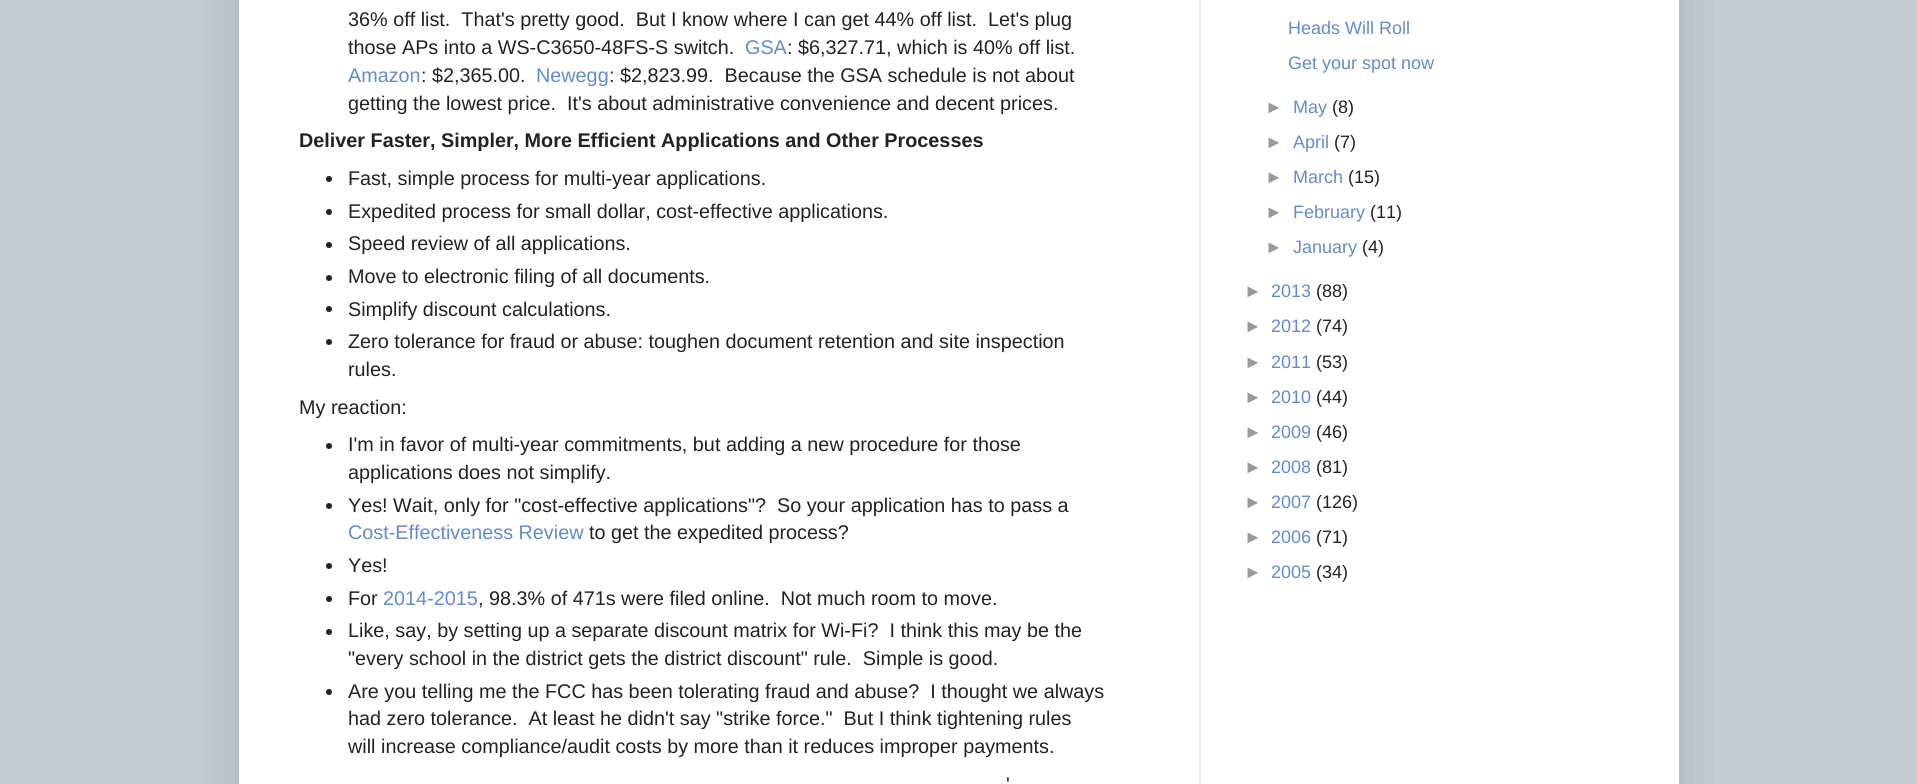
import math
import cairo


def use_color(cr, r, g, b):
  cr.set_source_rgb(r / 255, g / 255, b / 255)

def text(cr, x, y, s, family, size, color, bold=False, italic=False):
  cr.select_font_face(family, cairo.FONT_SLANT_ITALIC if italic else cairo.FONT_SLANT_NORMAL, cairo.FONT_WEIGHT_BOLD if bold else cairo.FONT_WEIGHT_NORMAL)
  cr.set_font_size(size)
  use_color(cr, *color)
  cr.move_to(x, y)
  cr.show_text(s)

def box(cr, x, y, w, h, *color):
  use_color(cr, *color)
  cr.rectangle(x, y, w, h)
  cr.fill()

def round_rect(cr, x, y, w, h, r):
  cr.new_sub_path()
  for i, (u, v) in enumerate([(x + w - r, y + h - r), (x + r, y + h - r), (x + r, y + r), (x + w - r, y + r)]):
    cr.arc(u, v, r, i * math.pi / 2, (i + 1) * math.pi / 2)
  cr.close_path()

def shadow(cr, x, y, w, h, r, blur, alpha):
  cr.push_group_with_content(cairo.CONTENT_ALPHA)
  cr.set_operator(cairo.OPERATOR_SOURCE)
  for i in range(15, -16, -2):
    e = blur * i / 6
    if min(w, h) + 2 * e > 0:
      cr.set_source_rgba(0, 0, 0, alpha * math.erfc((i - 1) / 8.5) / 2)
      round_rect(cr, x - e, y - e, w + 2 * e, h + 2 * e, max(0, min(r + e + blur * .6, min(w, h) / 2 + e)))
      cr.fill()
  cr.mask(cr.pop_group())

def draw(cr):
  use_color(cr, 200, 205, 212)
  cr.paint()
  use_color(cr, 0, 0, 0)
  shadow(cr, 239, -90, 1440, 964, 0, 30, 0.15)
  box(cr, 239, 0, 1440, 784, 255, 255, 255)
  box(cr, 1199, 0, 2, 784, 238, 238, 238)
  use_color(cr, 34, 34, 34)
  cr.arc(329, 179, 3, 0, 2 * math.pi)
  cr.fill()
  cr.arc(329, 212, 3, 0, 2 * math.pi)
  cr.fill()
  cr.arc(329, 245, 3, 0, 2 * math.pi)
  cr.fill()
  cr.arc(329, 278, 3, 0, 2 * math.pi)
  cr.fill()
  cr.arc(329, 309, 3, 0, 2 * math.pi)
  cr.fill()
  cr.arc(329, 342, 3, 0, 2 * math.pi)
  cr.fill()
  cr.arc(329, 446, 3, 0, 2 * math.pi)
  cr.fill()
  cr.arc(329, 506, 3, 0, 2 * math.pi)
  cr.fill()
  cr.arc(329, 566, 3, 0, 2 * math.pi)
  cr.fill()
  cr.arc(329, 599, 3, 0, 2 * math.pi)
  cr.fill()
  cr.arc(329, 632, 3, 0, 2 * math.pi)
  cr.fill()
  cr.arc(329, 692, 3, 0, 2 * math.pi)
  cr.fill()
  text(cr, 348, 26, "36% off list.  That's pretty good.  But I know where I can get 44% off list.  Let's plug", "Liberation Sans", 19.8, (34, 34, 34))
  text(cr, 348, 54, "those APs into a WS-C3650-48FS-S switch.", "Liberation Sans", 19.8, (34, 34, 34))
  text(cr, 745, 54, "GSA", "Liberation Sans", 19.8, (99, 137, 210))
  text(cr, 787, 54, ": $6,327.71, which is 40% off list.", "Liberation Sans", 19.8, (34, 34, 34))
  text(cr, 348, 82, "Amazon", "Liberation Sans", 19.8, (99, 137, 210))
  text(cr, 421, 82, ": $2,365.00.", "Liberation Sans", 19.8, (34, 34, 34))
  text(cr, 536, 82, "Newegg", "Liberation Sans", 19.8, (99, 137, 210))
  text(cr, 609, 82, ": $2,823.99.  Because the GSA schedule is not about", "Liberation Sans", 19.8, (34, 34, 34))
  text(cr, 348, 110, "getting the lowest price.  It's about administrative convenience and decent prices.", "Liberation Sans", 19.8, (34, 34, 34))
  text(cr, 299, 147, "Deliver Faster, Simpler, More Efficient Applications and Other Processes", "Liberation Sans", 19.8, (34, 34, 34), bold=True)
  text(cr, 348, 185, "Fast, simple process for multi-year applications.", "Liberation Sans", 19.8, (34, 34, 34))
  text(cr, 348, 218, "Expedited process for small dollar, cost-effective applications.", "Liberation Sans", 19.8, (34, 34, 34))
  text(cr, 348, 250, "Speed review of all applications.", "Liberation Sans", 19.8, (34, 34, 34))
  text(cr, 348, 283, "Move to electronic filing of all documents.", "Liberation Sans", 19.8, (34, 34, 34))
  text(cr, 348, 316, "Simplify discount calculations.", "Liberation Sans", 19.8, (34, 34, 34))
  text(cr, 348, 348, "Zero tolerance for fraud or abuse: toughen document retention and site inspection", "Liberation Sans", 19.8, (34, 34, 34))
  text(cr, 348, 376, "rules.", "Liberation Sans", 19.8, (34, 34, 34))
  text(cr, 299, 414, "My reaction:", "Liberation Sans", 19.8, (34, 34, 34))
  text(cr, 348, 451, "I'm in favor of multi-year commitments, but adding a new procedure for those", "Liberation Sans", 19.8, (34, 34, 34))
  text(cr, 348, 479, "applications does not simplify.", "Liberation Sans", 19.8, (34, 34, 34))
  text(cr, 348, 512, "Yes! Wait, only for \"cost-effective applications\"?  So your application has to pass a", "Liberation Sans", 19.8, (34, 34, 34))
  text(cr, 348, 539, "Cost-Effectiveness Review", "Liberation Sans", 19.8, (99, 137, 210))
  text(cr, 589, 539, "to get the expedited process?", "Liberation Sans", 19.8, (34, 34, 34))
  text(cr, 348, 572, "Yes!", "Liberation Sans", 19.8, (34, 34, 34))
  text(cr, 348, 605, "For", "Liberation Sans", 19.8, (34, 34, 34))
  text(cr, 383, 605, "2014-2015", "Liberation Sans", 19.8, (99, 137, 210))
  text(cr, 478, 605, ", 98.3% of 471s were filed online.  Not much room to move.", "Liberation Sans", 19.8, (34, 34, 34))
  text(cr, 348, 637, "Like, say, by setting up a separate discount matrix for Wi-Fi?  I think this may be the", "Liberation Sans", 19.8, (34, 34, 34))
  text(cr, 348, 665, "\"every school in the district gets the district discount\" rule.  Simple is good.", "Liberation Sans", 19.8, (34, 34, 34))
  text(cr, 348, 698, "Are you telling me the FCC has been tolerating fraud and abuse?  I thought we always", "Liberation Sans", 19.8, (34, 34, 34))
  text(cr, 348, 725, "had zero tolerance.  At least he didn't say \"strike force.\"  But I think tightening rules", "Liberation Sans", 19.8, (34, 34, 34))
  text(cr, 348, 753, "will increase compliance/audit costs by more than it reduces improper payments.", "Liberation Sans", 19.8, (34, 34, 34))
  text(cr, 1006, 791, "'", "Liberation Sans", 19.8, (34, 34, 34))
  text(cr, 1288, 34, "Heads Will Roll", "Liberation Sans", 18, (99, 137, 210))
  text(cr, 1288, 69, "Get your spot now", "Liberation Sans", 18, (99, 137, 210))
  text(cr, 1265, 113, "►", "Liberation Sans", 18, (153, 153, 153))
  text(cr, 1293, 113, "May", "Liberation Sans", 18, (99, 137, 210))
  text(cr, 1332, 113, "(8)", "Liberation Sans", 18, (34, 34, 34))
  text(cr, 1265, 148, "►", "Liberation Sans", 18, (153, 153, 153))
  text(cr, 1293, 148, "April", "Liberation Sans", 18, (99, 137, 210))
  text(cr, 1334, 148, "(7)", "Liberation Sans", 18, (34, 34, 34))
  text(cr, 1265, 183, "►", "Liberation Sans", 18, (153, 153, 153))
  text(cr, 1293, 183, "March", "Liberation Sans", 18, (99, 137, 210))
  text(cr, 1348, 183, "(15)", "Liberation Sans", 18, (34, 34, 34))
  text(cr, 1265, 218, "►", "Liberation Sans", 18, (153, 153, 153))
  text(cr, 1293, 218, "February", "Liberation Sans", 18, (99, 137, 210))
  text(cr, 1370, 218, "(11)", "Liberation Sans", 18, (34, 34, 34))
  text(cr, 1265, 253, "►", "Liberation Sans", 18, (153, 153, 153))
  text(cr, 1293, 253, "January", "Liberation Sans", 18, (99, 137, 210))
  text(cr, 1362, 253, "(4)", "Liberation Sans", 18, (34, 34, 34))
  text(cr, 1244, 297, "►", "Liberation Sans", 18, (153, 153, 153))
  text(cr, 1271, 297, "2013", "Liberation Sans", 18, (99, 137, 210))
  text(cr, 1316, 297, "(88)", "Liberation Sans", 18, (34, 34, 34))
  text(cr, 1244, 332, "►", "Liberation Sans", 18, (153, 153, 153))
  text(cr, 1271, 332, "2012", "Liberation Sans", 18, (99, 137, 210))
  text(cr, 1316, 332, "(74)", "Liberation Sans", 18, (34, 34, 34))
  text(cr, 1244, 368, "►", "Liberation Sans", 18, (153, 153, 153))
  text(cr, 1271, 368, "2011", "Liberation Sans", 18, (99, 137, 210))
  text(cr, 1316, 368, "(53)", "Liberation Sans", 18, (34, 34, 34))
  text(cr, 1244, 403, "►", "Liberation Sans", 18, (153, 153, 153))
  text(cr, 1271, 403, "2010", "Liberation Sans", 18, (99, 137, 210))
  text(cr, 1316, 403, "(44)", "Liberation Sans", 18, (34, 34, 34))
  text(cr, 1244, 438, "►", "Liberation Sans", 18, (153, 153, 153))
  text(cr, 1271, 438, "2009", "Liberation Sans", 18, (99, 137, 210))
  text(cr, 1316, 438, "(46)", "Liberation Sans", 18, (34, 34, 34))
  text(cr, 1244, 473, "►", "Liberation Sans", 18, (153, 153, 153))
  text(cr, 1271, 473, "2008", "Liberation Sans", 18, (99, 137, 210))
  text(cr, 1316, 473, "(81)", "Liberation Sans", 18, (34, 34, 34))
  text(cr, 1244, 508, "►", "Liberation Sans", 18, (153, 153, 153))
  text(cr, 1271, 508, "2007", "Liberation Sans", 18, (99, 137, 210))
  text(cr, 1316, 508, "(126)", "Liberation Sans", 18, (34, 34, 34))
  text(cr, 1244, 543, "►", "Liberation Sans", 18, (153, 153, 153))
  text(cr, 1271, 543, "2006", "Liberation Sans", 18, (99, 137, 210))
  text(cr, 1316, 543, "(71)", "Liberation Sans", 18, (34, 34, 34))
  text(cr, 1244, 578, "►", "Liberation Sans", 18, (153, 153, 153))
  text(cr, 1271, 578, "2005", "Liberation Sans", 18, (99, 137, 210))
  text(cr, 1316, 578, "(34)", "Liberation Sans", 18, (34, 34, 34))


surface = cairo.ImageSurface(cairo.FORMAT_RGB24, 1917, 784)
cr = cairo.Context(surface)
options = cairo.FontOptions()
options.set_hint_metrics(cairo.HINT_METRICS_OFF)
options.set_hint_style(cairo.HINT_STYLE_NONE)
cr.set_font_options(options)
cr.set_miter_limit(4)
draw(cr)
surface.write_to_png("out.png")
